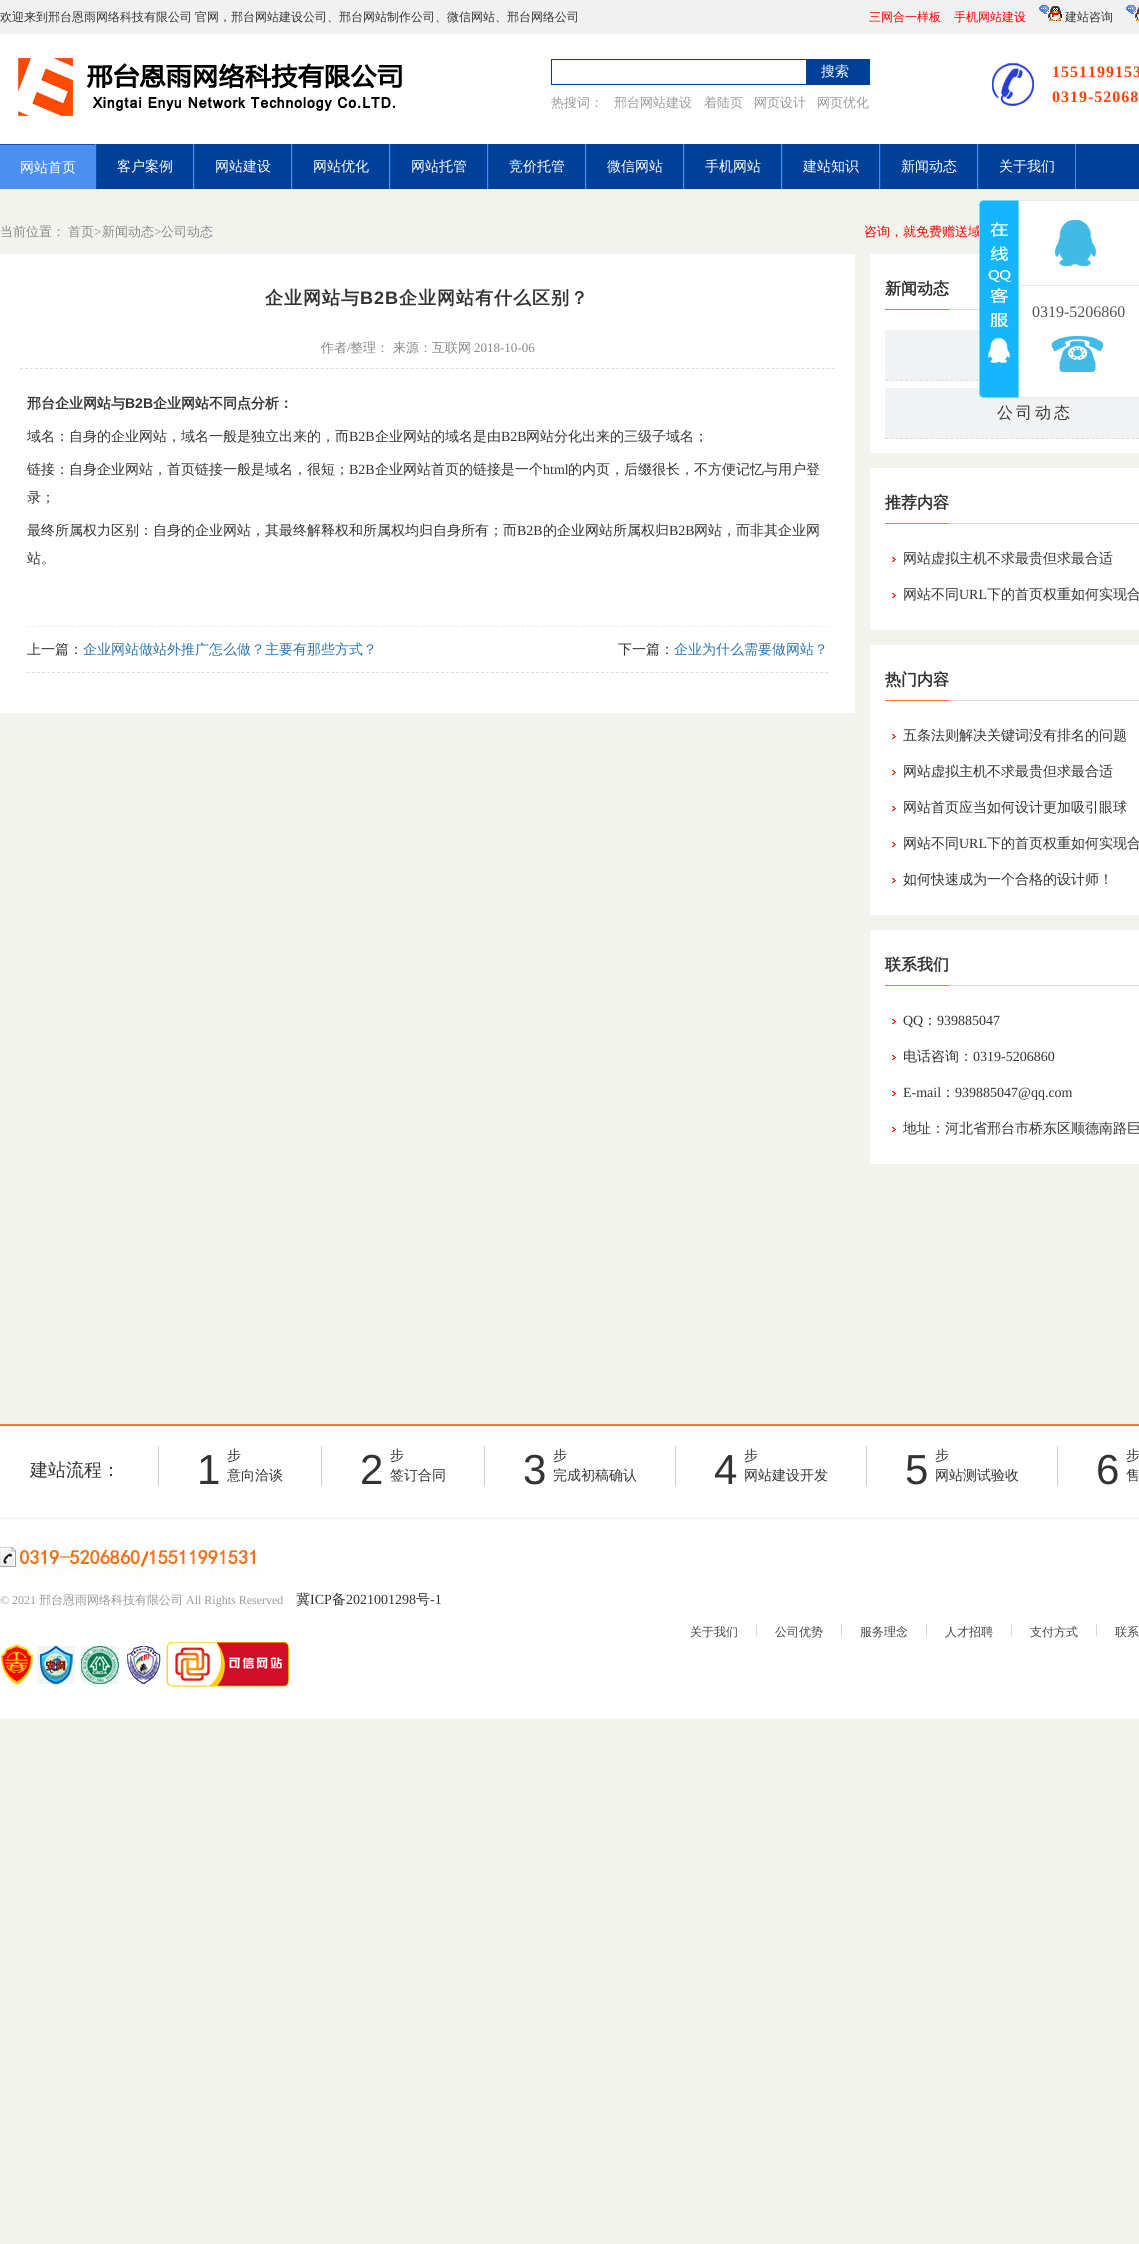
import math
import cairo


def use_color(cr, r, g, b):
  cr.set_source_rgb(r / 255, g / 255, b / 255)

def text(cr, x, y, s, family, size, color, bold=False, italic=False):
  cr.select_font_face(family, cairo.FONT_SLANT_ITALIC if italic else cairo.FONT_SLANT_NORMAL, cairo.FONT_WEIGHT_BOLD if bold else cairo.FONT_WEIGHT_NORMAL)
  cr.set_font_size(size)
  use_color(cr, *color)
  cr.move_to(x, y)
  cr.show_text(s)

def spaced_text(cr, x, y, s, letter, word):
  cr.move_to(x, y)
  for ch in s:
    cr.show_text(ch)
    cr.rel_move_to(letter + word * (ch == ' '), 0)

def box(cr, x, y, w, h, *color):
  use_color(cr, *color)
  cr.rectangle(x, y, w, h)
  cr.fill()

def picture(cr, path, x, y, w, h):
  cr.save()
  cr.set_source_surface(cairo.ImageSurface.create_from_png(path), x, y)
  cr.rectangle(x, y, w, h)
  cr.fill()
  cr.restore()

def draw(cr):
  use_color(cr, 242, 243, 237)
  cr.paint()
  box(cr, 0, 0, 1139, 34, 241, 241, 241)
  picture(cr, "img_01.png", 1039, 5, 23, 16)
  picture(cr, "img_02.png", 1126, 5, 13, 16)
  box(cr, 0, 34, 1139, 110, 255, 255, 255)
  picture(cr, "img_03.png", 18, 58, 384, 58)
  picture(cr, "img_04.png", 551, 59, 319, 26)
  picture(cr, "img_05.png", 992, 63, 42, 43)
  box(cr, 97, 144, 1042, 45, 1, 64, 153)
  box(cr, 0, 145, 95, 44, 76, 143, 238)
  box(cr, 0, 144, 96, 1, 5, 81, 188)
  box(cr, 193, 144, 1, 45, 76, 143, 238)
  box(cr, 95, 144, 1, 45, 76, 143, 238)
  box(cr, 96, 144, 1, 45, 5, 81, 188)
  box(cr, 291, 144, 1, 45, 76, 143, 238)
  box(cr, 194, 144, 1, 45, 5, 81, 188)
  box(cr, 389, 144, 1, 45, 76, 143, 238)
  box(cr, 292, 144, 1, 45, 5, 81, 188)
  box(cr, 487, 144, 1, 45, 76, 143, 238)
  box(cr, 390, 144, 1, 45, 5, 81, 188)
  box(cr, 585, 144, 1, 45, 76, 143, 238)
  box(cr, 488, 144, 1, 45, 5, 81, 188)
  box(cr, 683, 144, 1, 45, 76, 143, 238)
  box(cr, 586, 144, 1, 45, 5, 81, 188)
  box(cr, 781, 144, 1, 45, 76, 143, 238)
  box(cr, 684, 144, 1, 45, 5, 81, 188)
  box(cr, 879, 144, 1, 45, 76, 143, 238)
  box(cr, 782, 144, 1, 45, 5, 81, 188)
  box(cr, 977, 144, 1, 45, 76, 143, 238)
  box(cr, 880, 144, 1, 45, 5, 81, 188)
  box(cr, 1075, 144, 1, 45, 76, 143, 238)
  box(cr, 978, 144, 1, 45, 5, 81, 188)
  box(cr, 0, 254, 855, 459, 255, 255, 255)
  cr.new_path()
  cr.move_to(20, 368.5)
  cr.line_to(835, 368.5)
  use_color(cr, 221, 221, 221)
  cr.set_line_width(1)
  cr.set_dash([3, 2.01])
  cr.stroke()
  cr.new_path()
  cr.move_to(27, 626.5)
  cr.line_to(828, 626.5)
  use_color(cr, 237, 237, 237)
  cr.set_dash([3, 1.99])
  cr.stroke()
  cr.new_path()
  cr.move_to(27, 672.5)
  cr.line_to(828, 672.5)
  use_color(cr, 221, 221, 221)
  cr.stroke()
  box(cr, 870, 254, 269, 199, 255, 255, 255)
  box(cr, 949, 309, 70, 1, 221, 221, 221)
  box(cr, 885, 309, 64, 1, 255, 111, 61)
  box(cr, 885, 330, 134, 51, 241, 242, 243)
  cr.new_path()
  cr.move_to(885, 380.5)
  cr.line_to(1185, 380.5)
  use_color(cr, 221, 221, 221)
  cr.set_dash([3, 2.03])
  cr.stroke()
  box(cr, 885, 388, 254, 51, 241, 242, 243)
  cr.new_path()
  cr.move_to(885, 438.5)
  cr.line_to(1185, 438.5)
  use_color(cr, 221, 221, 221)
  cr.stroke()
  box(cr, 870, 468, 269, 162, 255, 255, 255)
  box(cr, 949, 523, 190, 1, 221, 221, 221)
  box(cr, 885, 523, 64, 1, 255, 111, 61)
  picture(cr, "img_06.png", 892, 557, 4, 5)
  picture(cr, "img_06.png", 892, 593, 4, 5)
  box(cr, 870, 645, 269, 270, 255, 255, 255)
  box(cr, 949, 700, 190, 1, 221, 221, 221)
  box(cr, 885, 700, 64, 1, 255, 111, 61)
  picture(cr, "img_06.png", 892, 734, 4, 5)
  picture(cr, "img_06.png", 892, 770, 4, 5)
  picture(cr, "img_06.png", 892, 806, 4, 5)
  picture(cr, "img_06.png", 892, 842, 4, 5)
  picture(cr, "img_06.png", 892, 878, 4, 5)
  box(cr, 870, 930, 269, 234, 255, 255, 255)
  box(cr, 949, 985, 190, 1, 221, 221, 221)
  box(cr, 885, 985, 64, 1, 255, 111, 61)
  picture(cr, "img_06.png", 892, 1019, 4, 5)
  picture(cr, "img_06.png", 892, 1055, 4, 5)
  picture(cr, "img_06.png", 892, 1091, 4, 5)
  picture(cr, "img_06.png", 892, 1127, 4, 5)
  box(cr, 0, 1426, 1139, 293, 255, 255, 255)
  box(cr, 0, 1424, 1139, 2, 255, 118, 56)
  box(cr, 158, 1446, 1, 40, 204, 208, 217)
  box(cr, 321, 1446, 1, 40, 204, 208, 217)
  box(cr, 484, 1446, 1, 40, 204, 208, 217)
  box(cr, 675, 1446, 1, 40, 204, 208, 217)
  box(cr, 866, 1446, 1, 40, 204, 208, 217)
  box(cr, 1057, 1446, 1, 40, 204, 208, 217)
  box(cr, 0, 1518, 1139, 1, 238, 238, 238)
  picture(cr, "img_08.png", 0, 1545, 263, 32)
  box(cr, 756, 1624, 1, 12, 215, 215, 215)
  box(cr, 841, 1624, 1, 12, 215, 215, 215)
  box(cr, 926, 1624, 1, 12, 215, 215, 215)
  box(cr, 1011, 1624, 1, 12, 215, 215, 215)
  box(cr, 1096, 1624, 1, 12, 215, 215, 215)
  picture(cr, "img_09.png", 0, 1642, 289, 45)
  text(cr, 0, 21, "欢迎来到邢台恩雨网络科技有限公司", "WenQuanYi Zen Hei Medium", 12, (51, 51, 51))
  text(cr, 195, 21, "官网，邢台网站建设公司、邢台网站制作公司、微信网站、邢台网络公司", "WenQuanYi Zen Hei Medium", 12, (51, 51, 51))
  text(cr, 869, 21, "三网合一样板", "WenQuanYi Zen Hei Medium", 12, (255, 0, 0))
  text(cr, 954, 21, "手机网站建设", "WenQuanYi Zen Hei Medium", 12, (255, 0, 0))
  text(cr, 1065, 21, "建站咨询", "WenQuanYi Zen Hei Medium", 12, (51, 51, 51))
  text(cr, 821, 76, "搜索", "WenQuanYi Zen Hei Medium", 14, (255, 255, 255))
  text(cr, 551, 107, "热搜词：", "WenQuanYi Zen Hei Medium", 13, (153, 153, 153))
  text(cr, 614, 107, "邢台网站建设", "WenQuanYi Zen Hei Medium", 13, (153, 153, 153))
  text(cr, 704, 107, "着陆页", "WenQuanYi Zen Hei Medium", 13, (153, 153, 153))
  text(cr, 754, 107, "网页设计", "WenQuanYi Zen Hei Medium", 13, (153, 153, 153))
  text(cr, 817, 107, "网页优化", "WenQuanYi Zen Hei Medium", 13, (153, 153, 153))
  cr.select_font_face("Liberation Serif", cairo.FONT_SLANT_NORMAL, cairo.FONT_WEIGHT_BOLD)
  cr.set_font_size(16)
  use_color(cr, 255, 66, 3)
  spaced_text(cr, 1052, 77, "1551199153", 1, 0)
  spaced_text(cr, 1052, 102, "0319-52068", 1, 0)
  text(cr, 20, 172, "网站首页", "WenQuanYi Zen Hei Medium", 14, (255, 255, 255))
  text(cr, 117, 171, "客户案例", "WenQuanYi Zen Hei Medium", 14, (255, 255, 255))
  text(cr, 215, 171, "网站建设", "WenQuanYi Zen Hei Medium", 14, (255, 255, 255))
  text(cr, 313, 171, "网站优化", "WenQuanYi Zen Hei Medium", 14, (255, 255, 255))
  text(cr, 411, 171, "网站托管", "WenQuanYi Zen Hei Medium", 14, (255, 255, 255))
  text(cr, 509, 171, "竞价托管", "WenQuanYi Zen Hei Medium", 14, (255, 255, 255))
  text(cr, 607, 171, "微信网站", "WenQuanYi Zen Hei Medium", 14, (255, 255, 255))
  text(cr, 705, 171, "手机网站", "WenQuanYi Zen Hei Medium", 14, (255, 255, 255))
  text(cr, 803, 171, "建站知识", "WenQuanYi Zen Hei Medium", 14, (255, 255, 255))
  text(cr, 901, 171, "新闻动态", "WenQuanYi Zen Hei Medium", 14, (255, 255, 255))
  text(cr, 999, 171, "关于我们", "WenQuanYi Zen Hei Medium", 14, (255, 255, 255))
  text(cr, 0, 236, "当前位置：", "WenQuanYi Zen Hei Medium", 13, (136, 136, 136))
  text(cr, 68, 236, "首页", "WenQuanYi Zen Hei Medium", 13, (136, 136, 136))
  text(cr, 94, 236, ">", "Liberation Serif", 13, (136, 136, 136))
  text(cr, 102, 236, "新闻动态", "WenQuanYi Zen Hei Medium", 13, (136, 136, 136))
  text(cr, 154, 236, ">", "Liberation Serif", 13, (136, 136, 136))
  text(cr, 161, 236, "公司动态", "WenQuanYi Zen Hei Medium", 13, (136, 136, 136))
  text(cr, 864, 236, "咨询，就免费赠送域", "WenQuanYi Zen Hei Medium", 13, (255, 0, 0))
  cr.select_font_face("WenQuanYi Zen Hei", cairo.FONT_SLANT_NORMAL, cairo.FONT_WEIGHT_BOLD)
  cr.set_font_size(18)
  use_color(cr, 51, 51, 51)
  spaced_text(cr, 265, 304, "企业网站与", 1, 0)
  cr.select_font_face("Liberation Sans", cairo.FONT_SLANT_NORMAL, cairo.FONT_WEIGHT_BOLD)
  spaced_text(cr, 360, 304, "B2B", 1, 0)
  cr.select_font_face("WenQuanYi Zen Hei", cairo.FONT_SLANT_NORMAL, cairo.FONT_WEIGHT_BOLD)
  spaced_text(cr, 399, 304, "企业网站有什么区别？", 1, 0)
  text(cr, 321, 352, "作者", "WenQuanYi Zen Hei Medium", 13, (136, 136, 136))
  text(cr, 347, 352, "/", "Liberation Serif", 13, (136, 136, 136))
  text(cr, 350, 352, "整理： 来源：互联网", "WenQuanYi Zen Hei Medium", 13, (136, 136, 136))
  text(cr, 474, 352, "2018-10-06", "Liberation Serif", 13, (136, 136, 136))
  text(cr, 27, 408, "邢台企业网站与", "WenQuanYi Zen Hei", 14, (51, 51, 51), bold=True)
  text(cr, 125, 408, "B2B", "Liberation Sans", 14, (51, 51, 51), bold=True)
  text(cr, 153, 408, "企业网站不同点分析：", "WenQuanYi Zen Hei", 14, (51, 51, 51), bold=True)
  text(cr, 27, 441, "域名：自身的企业网站，域名一般是独立出来的，而", "WenQuanYi Zen Hei Medium", 14, (51, 51, 51))
  text(cr, 349, 441, "B2B", "Liberation Serif", 14, (51, 51, 51))
  text(cr, 375, 441, "企业网站的域名是由", "WenQuanYi Zen Hei Medium", 14, (51, 51, 51))
  text(cr, 501, 441, "B2B", "Liberation Serif", 14, (51, 51, 51))
  text(cr, 526, 441, "网站分化出来的三级子域名；", "WenQuanYi Zen Hei Medium", 14, (51, 51, 51))
  text(cr, 27, 474, "链接：自身企业网站，首页链接一般是域名，很短；", "WenQuanYi Zen Hei Medium", 14, (51, 51, 51))
  text(cr, 349, 474, "B2B", "Liberation Serif", 14, (51, 51, 51))
  text(cr, 375, 474, "企业网站首页的链接是一个", "WenQuanYi Zen Hei Medium", 14, (51, 51, 51))
  text(cr, 543, 474, "html", "Liberation Serif", 14, (51, 51, 51))
  text(cr, 568, 474, "的内页，后缀很长，不方便记忆与用户登", "WenQuanYi Zen Hei Medium", 14, (51, 51, 51))
  text(cr, 27, 502, "录；", "WenQuanYi Zen Hei Medium", 14, (51, 51, 51))
  text(cr, 27, 535, "最终所属权力区别：自身的企业网站，其最终解释权和所属权均归自身所有；而", "WenQuanYi Zen Hei Medium", 14, (51, 51, 51))
  text(cr, 517, 535, "B2B", "Liberation Serif", 14, (51, 51, 51))
  text(cr, 543, 535, "的企业网站所属权归", "WenQuanYi Zen Hei Medium", 14, (51, 51, 51))
  text(cr, 669, 535, "B2B", "Liberation Serif", 14, (51, 51, 51))
  text(cr, 694, 535, "网站，而非其企业网", "WenQuanYi Zen Hei Medium", 14, (51, 51, 51))
  text(cr, 27, 563, "站。", "WenQuanYi Zen Hei Medium", 14, (51, 51, 51))
  text(cr, 27, 654, "上一篇：", "WenQuanYi Zen Hei Medium", 14, (51, 51, 51))
  text(cr, 83, 654, "企业网站做站外推广怎么做？主要有那些方式？", "WenQuanYi Zen Hei Medium", 14, (41, 117, 179))
  text(cr, 618, 654, "下一篇：", "WenQuanYi Zen Hei Medium", 14, (51, 51, 51))
  text(cr, 674, 654, "企业为什么需要做网站？", "WenQuanYi Zen Hei Medium", 14, (41, 117, 179))
  text(cr, 885, 294, "新闻动态", "WenQuanYi Zen Hei", 16, (51, 51, 51), bold=True)
  cr.select_font_face("WenQuanYi Zen Hei Medium")
  spaced_text(cr, 997, 418, "公司动态", 3, 0)
  text(cr, 885, 508, "推荐内容", "WenQuanYi Zen Hei", 16, (51, 51, 51), bold=True)
  text(cr, 903, 563, "网站虚拟主机不求最贵但求最合适", "WenQuanYi Zen Hei Medium", 14, (51, 51, 51))
  text(cr, 903, 599, "网站不同", "WenQuanYi Zen Hei Medium", 14, (51, 51, 51))
  text(cr, 959, 599, "URL", "Liberation Serif", 14, (51, 51, 51))
  text(cr, 987, 599, "下的首页权重如何实现合", "WenQuanYi Zen Hei Medium", 14, (51, 51, 51))
  text(cr, 885, 685, "热门内容", "WenQuanYi Zen Hei", 16, (51, 51, 51), bold=True)
  text(cr, 903, 740, "五条法则解决关键词没有排名的问题", "WenQuanYi Zen Hei Medium", 14, (51, 51, 51))
  text(cr, 903, 776, "网站虚拟主机不求最贵但求最合适", "WenQuanYi Zen Hei Medium", 14, (51, 51, 51))
  text(cr, 903, 812, "网站首页应当如何设计更加吸引眼球", "WenQuanYi Zen Hei Medium", 14, (51, 51, 51))
  text(cr, 903, 848, "网站不同", "WenQuanYi Zen Hei Medium", 14, (51, 51, 51))
  text(cr, 959, 848, "URL", "Liberation Serif", 14, (51, 51, 51))
  text(cr, 987, 848, "下的首页权重如何实现合", "WenQuanYi Zen Hei Medium", 14, (51, 51, 51))
  text(cr, 903, 884, "如何快速成为一个合格的设计师！", "WenQuanYi Zen Hei Medium", 14, (51, 51, 51))
  text(cr, 885, 970, "联系我们", "WenQuanYi Zen Hei", 16, (51, 51, 51), bold=True)
  text(cr, 903, 1025, "QQ", "Liberation Serif", 14, (51, 51, 51))
  text(cr, 923, 1025, "：", "WenQuanYi Zen Hei Medium", 14, (51, 51, 51))
  text(cr, 937, 1025, "939885047", "Liberation Serif", 14, (51, 51, 51))
  text(cr, 903, 1061, "电话咨询：", "WenQuanYi Zen Hei Medium", 14, (51, 51, 51))
  text(cr, 973, 1061, "0319-5206860", "Liberation Serif", 14, (51, 51, 51))
  text(cr, 903, 1097, "E-mail", "Liberation Serif", 14, (51, 51, 51))
  text(cr, 941, 1097, "：", "WenQuanYi Zen Hei Medium", 14, (51, 51, 51))
  text(cr, 955, 1097, "939885047@qq.com", "Liberation Serif", 14, (51, 51, 51))
  text(cr, 903, 1133, "地址：河北省邢台市桥东区顺德南路巨", "WenQuanYi Zen Hei Medium", 14, (51, 51, 51))
  picture(cr, "img_07.png", 979, 200, 160, 198)
  text(cr, 1032, 317, "0319-5206860", "Liberation Serif", 16, (85, 85, 85))
  text(cr, 30, 1476, "建站流程：", "WenQuanYi Zen Hei Medium", 18, (51, 51, 51))
  text(cr, 197, 1484, "1", "Liberation Sans", 42, (51, 51, 51))
  text(cr, 227, 1460, "步", "WenQuanYi Zen Hei Medium", 14, (51, 51, 51))
  text(cr, 227, 1480, "意向洽谈", "WenQuanYi Zen Hei Medium", 14, (51, 51, 51))
  text(cr, 360, 1484, "2", "Liberation Sans", 42, (51, 51, 51))
  text(cr, 390, 1460, "步", "WenQuanYi Zen Hei Medium", 14, (51, 51, 51))
  text(cr, 390, 1480, "签订合同", "WenQuanYi Zen Hei Medium", 14, (51, 51, 51))
  text(cr, 523, 1484, "3", "Liberation Sans", 42, (51, 51, 51))
  text(cr, 553, 1460, "步", "WenQuanYi Zen Hei Medium", 14, (51, 51, 51))
  text(cr, 553, 1480, "完成初稿确认", "WenQuanYi Zen Hei Medium", 14, (51, 51, 51))
  text(cr, 714, 1484, "4", "Liberation Sans", 42, (51, 51, 51))
  text(cr, 744, 1460, "步", "WenQuanYi Zen Hei Medium", 14, (51, 51, 51))
  text(cr, 744, 1480, "网站建设开发", "WenQuanYi Zen Hei Medium", 14, (51, 51, 51))
  text(cr, 905, 1484, "5", "Liberation Sans", 42, (51, 51, 51))
  text(cr, 935, 1460, "步", "WenQuanYi Zen Hei Medium", 14, (51, 51, 51))
  text(cr, 935, 1480, "网站测试验收", "WenQuanYi Zen Hei Medium", 14, (51, 51, 51))
  text(cr, 1096, 1484, "6", "Liberation Sans", 42, (51, 51, 51))
  text(cr, 1126, 1460, "步", "WenQuanYi Zen Hei Medium", 14, (51, 51, 51))
  text(cr, 1126, 1480, "售", "WenQuanYi Zen Hei Medium", 14, (51, 51, 51))
  text(cr, 0, 1604, "© 2021", "Liberation Serif", 12, (153, 153, 153))
  text(cr, 39, 1604, "邢台恩雨网络科技有限公司", "WenQuanYi Zen Hei Medium", 12, (153, 153, 153))
  text(cr, 186, 1604, "All Rights Reserved", "Liberation Serif", 12, (153, 153, 153))
  text(cr, 296, 1604, "冀", "WenQuanYi Zen Hei Medium", 14, (51, 51, 51))
  text(cr, 310, 1604, "ICP", "Liberation Serif", 14, (51, 51, 51))
  text(cr, 332, 1604, "备", "WenQuanYi Zen Hei Medium", 14, (51, 51, 51))
  text(cr, 346, 1604, "2021001298", "Liberation Serif", 14, (51, 51, 51))
  text(cr, 416, 1604, "号", "WenQuanYi Zen Hei Medium", 14, (51, 51, 51))
  text(cr, 430, 1604, "-1", "Liberation Serif", 14, (51, 51, 51))
  text(cr, 690, 1636, "关于我们", "WenQuanYi Zen Hei Medium", 12, (69, 69, 69))
  text(cr, 775, 1636, "公司优势", "WenQuanYi Zen Hei Medium", 12, (69, 69, 69))
  text(cr, 860, 1636, "服务理念", "WenQuanYi Zen Hei Medium", 12, (69, 69, 69))
  text(cr, 945, 1636, "人才招聘", "WenQuanYi Zen Hei Medium", 12, (69, 69, 69))
  text(cr, 1030, 1636, "支付方式", "WenQuanYi Zen Hei Medium", 12, (69, 69, 69))
  text(cr, 1115, 1636, "联系", "WenQuanYi Zen Hei Medium", 12, (69, 69, 69))


surface = cairo.ImageSurface(cairo.FORMAT_RGB24, 1139, 2244)
cr = cairo.Context(surface)
options = cairo.FontOptions()
options.set_hint_metrics(cairo.HINT_METRICS_OFF)
options.set_hint_style(cairo.HINT_STYLE_NONE)
cr.set_font_options(options)
cr.set_miter_limit(4)
draw(cr)
surface.write_to_png("out.png")
